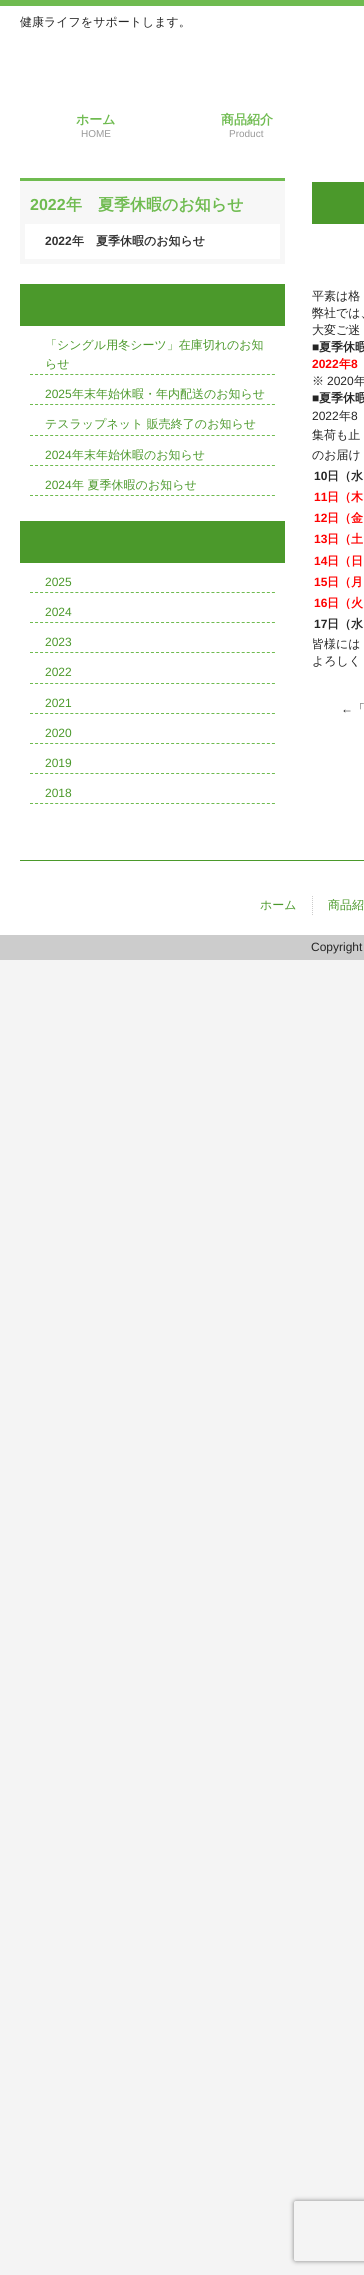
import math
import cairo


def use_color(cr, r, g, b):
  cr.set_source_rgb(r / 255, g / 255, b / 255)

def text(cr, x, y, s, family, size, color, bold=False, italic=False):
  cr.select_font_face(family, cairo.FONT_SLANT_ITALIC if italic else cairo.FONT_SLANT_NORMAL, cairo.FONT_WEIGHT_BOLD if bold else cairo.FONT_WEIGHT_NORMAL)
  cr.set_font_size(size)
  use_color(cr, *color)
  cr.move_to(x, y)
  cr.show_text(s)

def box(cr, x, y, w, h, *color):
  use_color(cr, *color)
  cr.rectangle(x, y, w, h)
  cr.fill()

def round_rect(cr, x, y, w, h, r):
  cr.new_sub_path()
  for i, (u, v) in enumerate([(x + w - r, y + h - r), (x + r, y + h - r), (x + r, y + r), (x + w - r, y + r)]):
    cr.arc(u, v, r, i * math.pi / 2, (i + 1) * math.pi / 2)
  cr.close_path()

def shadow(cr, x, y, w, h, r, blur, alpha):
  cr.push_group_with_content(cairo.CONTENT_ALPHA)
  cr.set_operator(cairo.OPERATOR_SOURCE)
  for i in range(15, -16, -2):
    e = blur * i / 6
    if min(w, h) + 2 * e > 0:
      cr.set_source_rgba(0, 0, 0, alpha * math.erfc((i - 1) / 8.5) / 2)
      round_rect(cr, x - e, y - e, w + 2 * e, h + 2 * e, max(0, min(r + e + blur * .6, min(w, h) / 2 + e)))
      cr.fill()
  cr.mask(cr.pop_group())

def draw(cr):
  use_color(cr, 244, 244, 244)
  cr.paint()
  box(cr, 0, 6, 364, 929, 255, 255, 255)
  box(cr, 0, 0, 364, 6, 111, 187, 80)
  box(cr, 20, 181, 265, 83, 247, 247, 247)
  box(cr, 20, 178, 265, 3, 111, 187, 80)
  box(cr, 25, 224, 255, 35, 255, 255, 255)
  box(cr, 20, 284, 265, 42, 75, 153, 43)
  cr.new_path()
  cr.move_to(30, 374.5)
  cr.line_to(275, 374.5)
  use_color(cr, 111, 187, 80)
  cr.set_line_width(1)
  cr.set_dash([3, 2.04])
  cr.stroke()
  cr.new_path()
  cr.move_to(30, 404.5)
  cr.line_to(275, 404.5)
  cr.stroke()
  cr.new_path()
  cr.move_to(30, 435.5)
  cr.line_to(275, 435.5)
  cr.stroke()
  cr.new_path()
  cr.move_to(30, 465.5)
  cr.line_to(275, 465.5)
  cr.stroke()
  cr.new_path()
  cr.move_to(30, 495.5)
  cr.line_to(275, 495.5)
  cr.stroke()
  box(cr, 20, 521, 265, 42, 75, 153, 43)
  cr.new_path()
  cr.move_to(30, 592.5)
  cr.line_to(275, 592.5)
  use_color(cr, 111, 187, 80)
  cr.stroke()
  cr.new_path()
  cr.move_to(30, 622.5)
  cr.line_to(275, 622.5)
  cr.stroke()
  cr.new_path()
  cr.move_to(30, 652.5)
  cr.line_to(275, 652.5)
  cr.stroke()
  cr.new_path()
  cr.move_to(30, 683.5)
  cr.line_to(275, 683.5)
  cr.stroke()
  cr.new_path()
  cr.move_to(30, 713.5)
  cr.line_to(275, 713.5)
  cr.stroke()
  cr.new_path()
  cr.move_to(30, 743.5)
  cr.line_to(275, 743.5)
  cr.stroke()
  cr.new_path()
  cr.move_to(30, 773.5)
  cr.line_to(275, 773.5)
  cr.stroke()
  cr.new_path()
  cr.move_to(30, 803.5)
  cr.line_to(275, 803.5)
  cr.stroke()
  box(cr, 312, 182, 52, 42, 75, 153, 43)
  box(cr, 20, 860, 344, 1, 75, 153, 43)
  cr.new_path()
  cr.move_to(312.5, 896)
  cr.line_to(312.5, 915)
  use_color(cr, 204, 204, 204)
  cr.set_dash([1, 1])
  cr.stroke()
  box(cr, 0, 935, 364, 25, 204, 204, 204)
  cr.save()
  cr.set_fill_rule(cairo.FILL_RULE_EVEN_ODD)
  cr.new_path()
  cr.move_to(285, 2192)
  cr.line_to(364, 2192)
  cr.line_to(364, 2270)
  cr.line_to(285, 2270)
  cr.close_path()
  cr.move_to(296, 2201)
  cr.line_to(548, 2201)
  cr.curve_to(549, 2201, 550, 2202, 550, 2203)
  cr.line_to(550, 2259)
  cr.curve_to(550, 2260, 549, 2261, 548, 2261)
  cr.line_to(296, 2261)
  cr.curve_to(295, 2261, 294, 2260, 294, 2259)
  cr.line_to(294, 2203)
  cr.curve_to(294, 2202, 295, 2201, 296, 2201)
  cr.close_path()
  cr.clip()
  use_color(cr, 128, 128, 128)
  shadow(cr, 294, 2201, 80, 60, 2, 2.5, 1)
  cr.restore()
  text(cr, 20, 26, "健康ライフをサポートします。", "WenQuanYi Zen Hei Medium", 12, (37, 37, 37))
  text(cr, 76, 124, "ホーム", "WenQuanYi Zen Hei", 13, (111, 187, 80), bold=True)
  text(cr, 81, 137, "HOME", "Liberation Sans", 10, (153, 153, 153))
  text(cr, 221, 124, "商品紹介", "WenQuanYi Zen Hei", 13, (111, 187, 80), bold=True)
  text(cr, 229, 137, "Product", "Liberation Sans", 10, (153, 153, 153))
  text(cr, 30, 210, "2022", "Liberation Sans", 16, (111, 187, 80), bold=True)
  text(cr, 66, 210, "年　夏季休暇のお知らせ", "WenQuanYi Zen Hei", 16, (111, 187, 80), bold=True)
  text(cr, 45, 245, "2022", "Liberation Sans", 12, (51, 51, 51), bold=True)
  text(cr, 72, 245, "年　夏季休暇のお知らせ", "WenQuanYi Zen Hei", 12, (51, 51, 51), bold=True)
  text(cr, 45, 349, "「シングル用冬シーツ」在庫切れのお知", "WenQuanYi Zen Hei Medium", 12, (75, 153, 43))
  text(cr, 45, 368, "らせ", "WenQuanYi Zen Hei Medium", 12, (75, 153, 43))
  text(cr, 45, 398, "2025", "Liberation Sans", 12, (75, 153, 43))
  text(cr, 72, 398, "年末年始休暇・年内配送のお知らせ", "WenQuanYi Zen Hei Medium", 12, (75, 153, 43))
  text(cr, 45, 428, "テスラップネット 販売終了のお知らせ", "WenQuanYi Zen Hei Medium", 12, (75, 153, 43))
  text(cr, 45, 459, "2024", "Liberation Sans", 12, (75, 153, 43))
  text(cr, 72, 459, "年末年始休暇のお知らせ", "WenQuanYi Zen Hei Medium", 12, (75, 153, 43))
  text(cr, 45, 489, "2024", "Liberation Sans", 12, (75, 153, 43))
  text(cr, 72, 489, "年 夏季休暇のお知らせ", "WenQuanYi Zen Hei Medium", 12, (75, 153, 43))
  text(cr, 45, 586, "2025", "Liberation Sans", 12, (75, 153, 43))
  text(cr, 45, 616, "2024", "Liberation Sans", 12, (75, 153, 43))
  text(cr, 45, 646, "2023", "Liberation Sans", 12, (75, 153, 43))
  text(cr, 45, 676, "2022", "Liberation Sans", 12, (75, 153, 43))
  text(cr, 45, 707, "2021", "Liberation Sans", 12, (75, 153, 43))
  text(cr, 45, 737, "2020", "Liberation Sans", 12, (75, 153, 43))
  text(cr, 45, 767, "2019", "Liberation Sans", 12, (75, 153, 43))
  text(cr, 45, 797, "2018", "Liberation Sans", 12, (75, 153, 43))
  text(cr, 312, 300, "平素は格", "WenQuanYi Zen Hei Medium", 12, (37, 37, 37))
  text(cr, 312, 317, "弊社では、", "WenQuanYi Zen Hei Medium", 12, (37, 37, 37))
  text(cr, 312, 334, "大変ご迷", "WenQuanYi Zen Hei Medium", 12, (37, 37, 37))
  text(cr, 312, 351, "■", "Liberation Sans", 12, (37, 37, 37), bold=True)
  text(cr, 319, 351, "夏季休暇", "WenQuanYi Zen Hei", 12, (37, 37, 37), bold=True)
  text(cr, 312, 368, "2022", "Liberation Sans", 12, (255, 0, 0), bold=True)
  text(cr, 339, 368, "年", "WenQuanYi Zen Hei", 12, (255, 0, 0), bold=True)
  text(cr, 351, 368, "8", "Liberation Sans", 12, (255, 0, 0), bold=True)
  text(cr, 312, 385, "※", "WenQuanYi Zen Hei Medium", 12, (37, 37, 37))
  text(cr, 327, 385, "2020", "Liberation Sans", 12, (37, 37, 37))
  text(cr, 354, 385, "年", "WenQuanYi Zen Hei Medium", 12, (37, 37, 37))
  text(cr, 312, 402, "■", "Liberation Sans", 12, (37, 37, 37), bold=True)
  text(cr, 319, 402, "夏季休暇", "WenQuanYi Zen Hei", 12, (37, 37, 37), bold=True)
  text(cr, 312, 420, "2022", "Liberation Sans", 12, (37, 37, 37))
  text(cr, 339, 420, "年", "WenQuanYi Zen Hei Medium", 12, (37, 37, 37))
  text(cr, 351, 420, "8", "Liberation Sans", 12, (37, 37, 37))
  text(cr, 312, 439, "集荷も止", "WenQuanYi Zen Hei Medium", 12, (37, 37, 37))
  text(cr, 312, 459, "のお届け", "WenQuanYi Zen Hei Medium", 12, (37, 37, 37))
  text(cr, 314, 480, "10", "Liberation Sans", 12, (37, 37, 37), bold=True)
  text(cr, 327, 480, "日（水", "WenQuanYi Zen Hei", 12, (37, 37, 37), bold=True)
  text(cr, 314, 501, "11", "Liberation Sans", 12, (255, 0, 0), bold=True)
  text(cr, 327, 501, "日（木", "WenQuanYi Zen Hei", 12, (255, 0, 0), bold=True)
  text(cr, 314, 522, "12", "Liberation Sans", 12, (255, 0, 0), bold=True)
  text(cr, 327, 522, "日（金", "WenQuanYi Zen Hei", 12, (255, 0, 0), bold=True)
  text(cr, 314, 543, "13", "Liberation Sans", 12, (255, 0, 0), bold=True)
  text(cr, 327, 543, "日（土", "WenQuanYi Zen Hei", 12, (255, 0, 0), bold=True)
  text(cr, 314, 565, "14", "Liberation Sans", 12, (255, 0, 0), bold=True)
  text(cr, 327, 565, "日（日", "WenQuanYi Zen Hei", 12, (255, 0, 0), bold=True)
  text(cr, 314, 586, "15", "Liberation Sans", 12, (255, 0, 0), bold=True)
  text(cr, 327, 586, "日（月", "WenQuanYi Zen Hei", 12, (255, 0, 0), bold=True)
  text(cr, 314, 607, "16", "Liberation Sans", 12, (255, 0, 0), bold=True)
  text(cr, 327, 607, "日（火", "WenQuanYi Zen Hei", 12, (255, 0, 0), bold=True)
  text(cr, 314, 628, "17", "Liberation Sans", 12, (37, 37, 37), bold=True)
  text(cr, 327, 628, "日（水", "WenQuanYi Zen Hei", 12, (37, 37, 37), bold=True)
  text(cr, 312, 648, "皆様には", "WenQuanYi Zen Hei Medium", 12, (37, 37, 37))
  text(cr, 312, 665, "よろしく", "WenQuanYi Zen Hei Medium", 12, (37, 37, 37))
  text(cr, 353, 713, "「", "WenQuanYi Zen Hei Medium", 12, (37, 37, 37))
  text(cr, 341, 713, "←", "Liberation Sans", 12, (37, 37, 37))
  text(cr, 260, 909, "ホーム", "WenQuanYi Zen Hei Medium", 12, (75, 153, 43))
  text(cr, 328, 909, "商品紹", "WenQuanYi Zen Hei Medium", 12, (75, 153, 43))
  text(cr, 311, 951, "Copyright", "Liberation Sans", 12, (37, 37, 37))


surface = cairo.ImageSurface(cairo.FORMAT_RGB24, 364, 2275)
cr = cairo.Context(surface)
options = cairo.FontOptions()
options.set_hint_metrics(cairo.HINT_METRICS_OFF)
options.set_hint_style(cairo.HINT_STYLE_NONE)
cr.set_font_options(options)
cr.set_miter_limit(4)
draw(cr)
surface.write_to_png("out.png")
